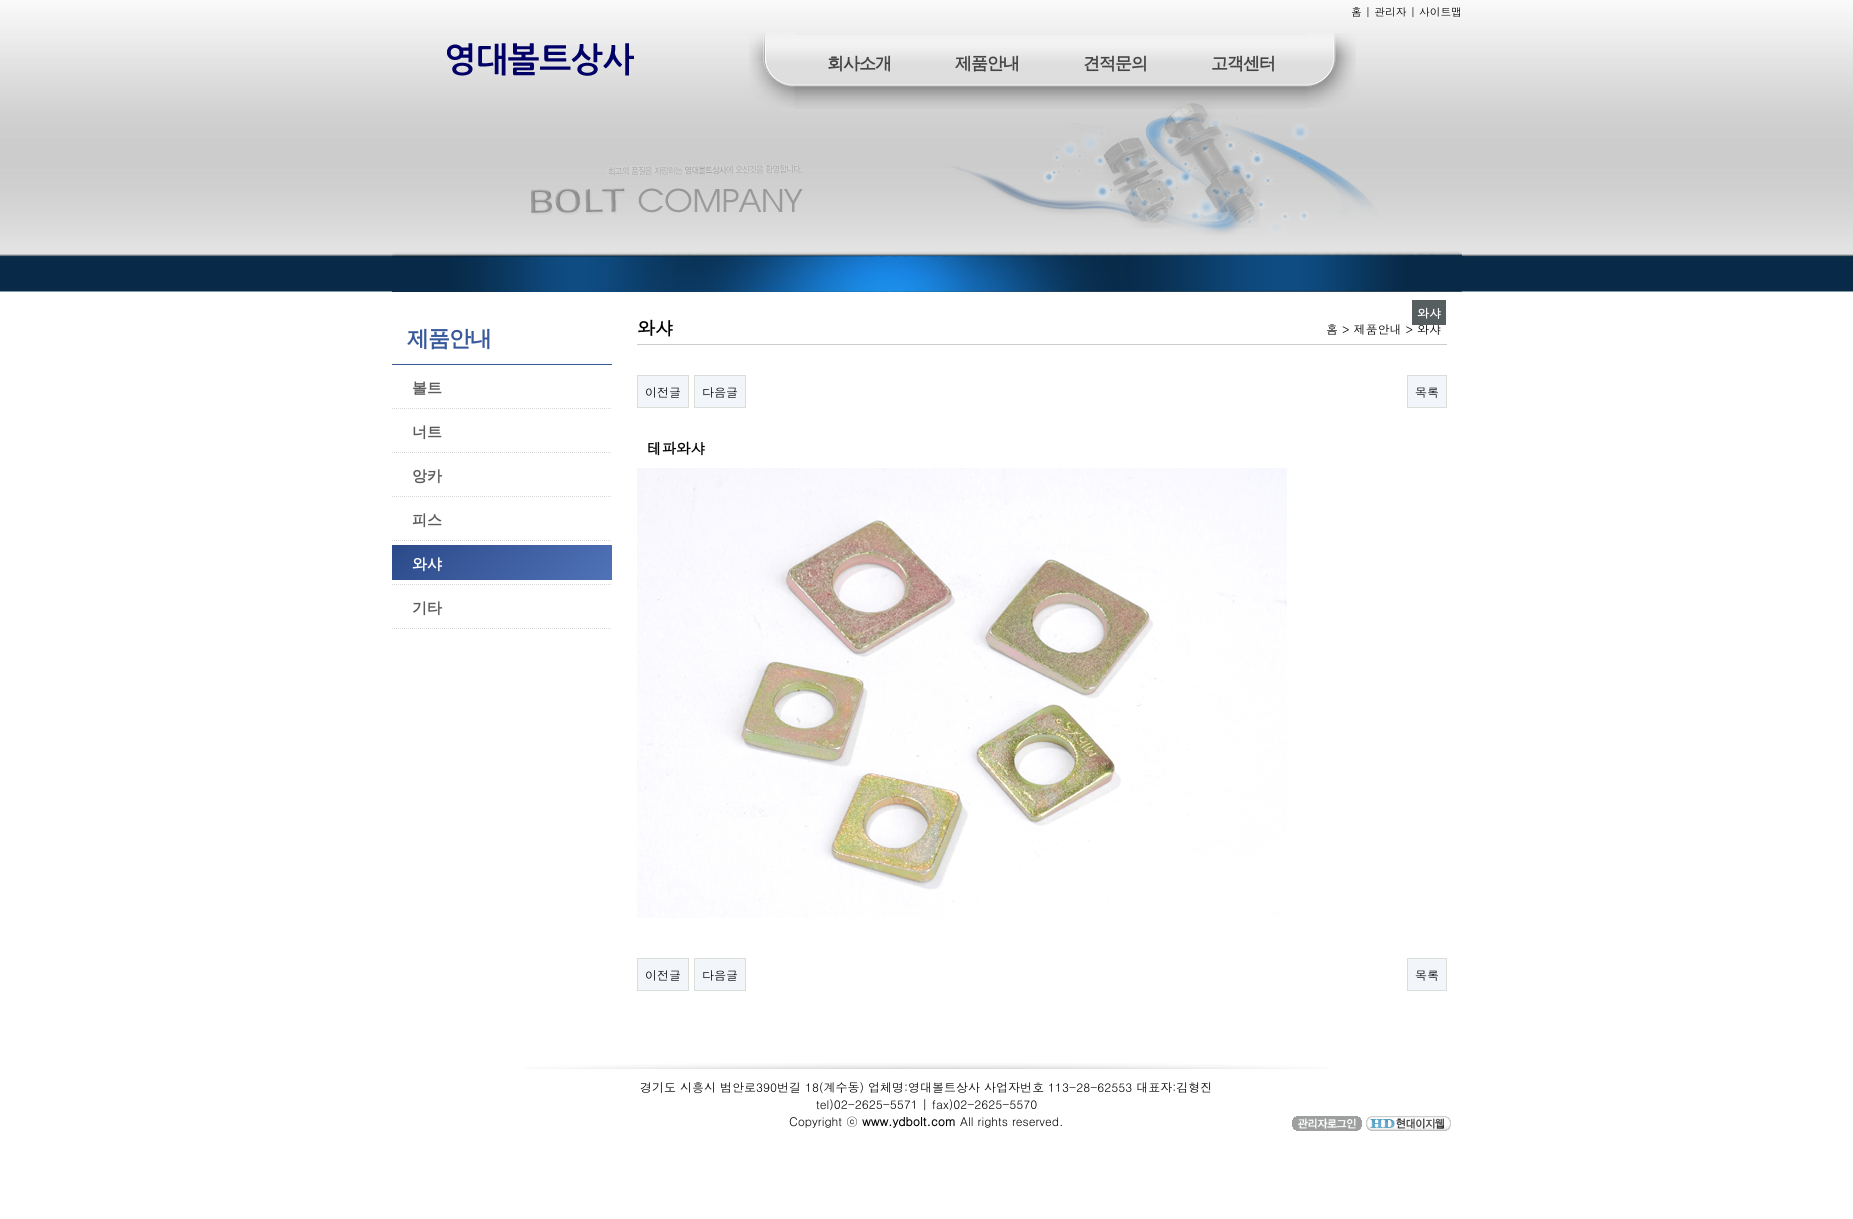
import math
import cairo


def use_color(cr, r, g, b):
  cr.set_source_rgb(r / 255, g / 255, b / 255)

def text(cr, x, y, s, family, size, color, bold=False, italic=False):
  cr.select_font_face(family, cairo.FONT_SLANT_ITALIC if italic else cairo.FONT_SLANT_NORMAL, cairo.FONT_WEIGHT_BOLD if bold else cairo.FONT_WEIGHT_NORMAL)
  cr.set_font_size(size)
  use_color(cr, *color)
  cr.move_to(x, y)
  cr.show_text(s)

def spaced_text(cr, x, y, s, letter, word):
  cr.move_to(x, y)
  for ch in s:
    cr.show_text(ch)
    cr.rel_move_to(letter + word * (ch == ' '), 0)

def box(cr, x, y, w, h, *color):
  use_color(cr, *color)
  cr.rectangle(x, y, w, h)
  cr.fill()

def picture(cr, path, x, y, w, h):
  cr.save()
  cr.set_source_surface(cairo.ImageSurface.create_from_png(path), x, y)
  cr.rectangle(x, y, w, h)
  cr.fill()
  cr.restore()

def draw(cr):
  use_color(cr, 255, 255, 255)
  cr.paint()
  picture(cr, "img_01.png", 0, 0, 1853, 292)
  picture(cr, "img_02.png", 447, 43, 187, 33)
  picture(cr, "img_03.png", 749, 32, 46, 76)
  picture(cr, "img_04.png", 795, 35, 128, 74)
  picture(cr, "img_04.png", 923, 35, 128, 74)
  picture(cr, "img_08.png", 392, 110, 1070, 182)
  picture(cr, "img_10.png", 1103, 103, 157, 126)
  picture(cr, "img_05.png", 1051, 35, 128, 74)
  picture(cr, "img_06.png", 1179, 35, 128, 74)
  picture(cr, "img_07.png", 1307, 33, 49, 75)
  picture(cr, "img_09.png", 531, 165, 272, 50)
  box(cr, 392, 364, 220, 1, 57, 89, 155)
  cr.new_path()
  cr.move_to(392, 408.5)
  cr.line_to(612, 408.5)
  use_color(cr, 217, 217, 217)
  cr.set_line_width(1)
  cr.set_dash([1, 1])
  cr.stroke()
  cr.new_path()
  cr.move_to(392, 452.5)
  cr.line_to(612, 452.5)
  cr.stroke()
  cr.new_path()
  cr.move_to(392, 496.5)
  cr.line_to(612, 496.5)
  cr.stroke()
  cr.new_path()
  cr.move_to(392, 540.5)
  cr.line_to(612, 540.5)
  cr.stroke()
  cr.new_path()
  cr.move_to(392, 584.5)
  cr.line_to(612, 584.5)
  cr.stroke()
  gradient = cairo.LinearGradient(566, 626, 438, 499)
  gradient.add_color_stop_rgba(0, 0.314, 0.447, 0.718, 1)
  gradient.add_color_stop_rgba(1, 0.169, 0.29, 0.541, 1)
  cr.set_source(gradient)
  cr.rectangle(392, 545, 220, 35)
  cr.fill()
  cr.new_path()
  cr.move_to(392, 628.5)
  cr.line_to(612, 628.5)
  use_color(cr, 217, 217, 217)
  cr.stroke()
  box(cr, 637, 344, 810, 1, 204, 204, 204)
  use_color(cr, 242, 245, 249)
  cr.rectangle(637.5, 375.5, 51, 32)
  cr.fill_preserve()
  use_color(cr, 217, 222, 217)
  cr.set_dash([])
  cr.stroke()
  use_color(cr, 242, 245, 249)
  cr.rectangle(694.5, 375.5, 51, 32)
  cr.fill_preserve()
  use_color(cr, 217, 222, 217)
  cr.stroke()
  use_color(cr, 242, 245, 249)
  cr.rectangle(1407.5, 375.5, 39, 32)
  cr.fill_preserve()
  use_color(cr, 217, 222, 217)
  cr.stroke()
  picture(cr, "img_11.png", 637, 468, 650, 450)
  use_color(cr, 242, 245, 249)
  cr.rectangle(637.5, 958.5, 51, 32)
  cr.fill_preserve()
  use_color(cr, 217, 222, 217)
  cr.stroke()
  use_color(cr, 242, 245, 249)
  cr.rectangle(694.5, 958.5, 51, 32)
  cr.fill_preserve()
  use_color(cr, 217, 222, 217)
  cr.stroke()
  use_color(cr, 242, 245, 249)
  cr.rectangle(1407.5, 958.5, 39, 32)
  cr.fill_preserve()
  use_color(cr, 217, 222, 217)
  cr.stroke()
  picture(cr, "img_12.png", 525, 1063, 802, 6)
  picture(cr, "img_13.png", 1292, 1116, 70, 15)
  picture(cr, "img_14.png", 1366, 1116, 85, 15)
  text(cr, 1351, 16, "홈 | 관리자 | 사이트맵", "Dotum", 10.75, (0, 0, 0))
  cr.select_font_face("WenQuanYi Zen Hei", cairo.FONT_SLANT_NORMAL, cairo.FONT_WEIGHT_BOLD)
  cr.set_font_size(17)
  use_color(cr, 70, 70, 70)
  spaced_text(cr, 827, 69, "회사소개", -1, 0)
  spaced_text(cr, 955, 69, "제품안내", -1, 0)
  spaced_text(cr, 1083, 69, "견적문의", -1, 0)
  spaced_text(cr, 1211, 69, "고객센터", -1, 0)
  cr.set_font_size(22)
  use_color(cr, 57, 89, 155)
  spaced_text(cr, 407, 346, "제품안내", -1, 0)
  text(cr, 412, 393, "볼트", "WenQuanYi Zen Hei", 15, (92, 92, 92), bold=True)
  text(cr, 412, 437, "너트", "WenQuanYi Zen Hei", 15, (92, 92, 92), bold=True)
  text(cr, 412, 481, "앙카", "WenQuanYi Zen Hei", 15, (92, 92, 92), bold=True)
  text(cr, 412, 525, "피스", "WenQuanYi Zen Hei", 15, (92, 92, 92), bold=True)
  text(cr, 412, 569, "와샤", "WenQuanYi Zen Hei", 15, (255, 255, 255), bold=True)
  text(cr, 412, 613, "기타", "WenQuanYi Zen Hei", 15, (92, 92, 92), bold=True)
  text(cr, 637, 335, "와샤", "Dotum", 18, (0, 0, 0), bold=True)
  text(cr, 1326, 334, "홈 > 제품안내 > 와샤", "Dotum", 12, (0, 0, 0))
  box(cr, 1412, 300, 34, 25, 86, 94, 96)
  text(cr, 1417, 318, "와샤", "Dotum", 12, (255, 255, 255), bold=True)
  text(cr, 645, 397, "이전글", "Dotum", 12, (0, 0, 0))
  text(cr, 702, 397, "다음글", "Dotum", 12, (0, 0, 0))
  text(cr, 1415, 397, "목록", "Dotum", 12, (0, 0, 0))
  text(cr, 647, 454, "테파와샤", "Dotum", 14.5, (0, 0, 0), bold=True)
  text(cr, 645, 980, "이전글", "Dotum", 12, (0, 0, 0))
  text(cr, 702, 980, "다음글", "Dotum", 12, (0, 0, 0))
  text(cr, 1415, 980, "목록", "Dotum", 12, (0, 0, 0))
  text(cr, 640, 1092, "경기도 시흥시 범안로390번길 18(계수동) 업체명:영대볼트상사 사업자번호 113-28-62553 대표자:김형진", "Dotum", 12, (0, 0, 0))
  text(cr, 816, 1109, "tel)02-2625-5571 | fax)02-2625-5570", "Dotum", 12, (0, 0, 0))
  text(cr, 789, 1126, "Copyright ⓒ", "Dotum", 12, (0, 0, 0))
  text(cr, 862, 1126, "www.ydbolt.com", "Dotum", 12, (0, 0, 0), bold=True)
  text(cr, 960, 1126, "All rights reserved.", "Dotum", 12, (0, 0, 0))


surface = cairo.ImageSurface(cairo.FORMAT_RGB24, 1853, 1219)
cr = cairo.Context(surface)
options = cairo.FontOptions()
options.set_hint_metrics(cairo.HINT_METRICS_OFF)
options.set_hint_style(cairo.HINT_STYLE_NONE)
cr.set_font_options(options)
cr.set_miter_limit(4)
draw(cr)
surface.write_to_png("out.png")
